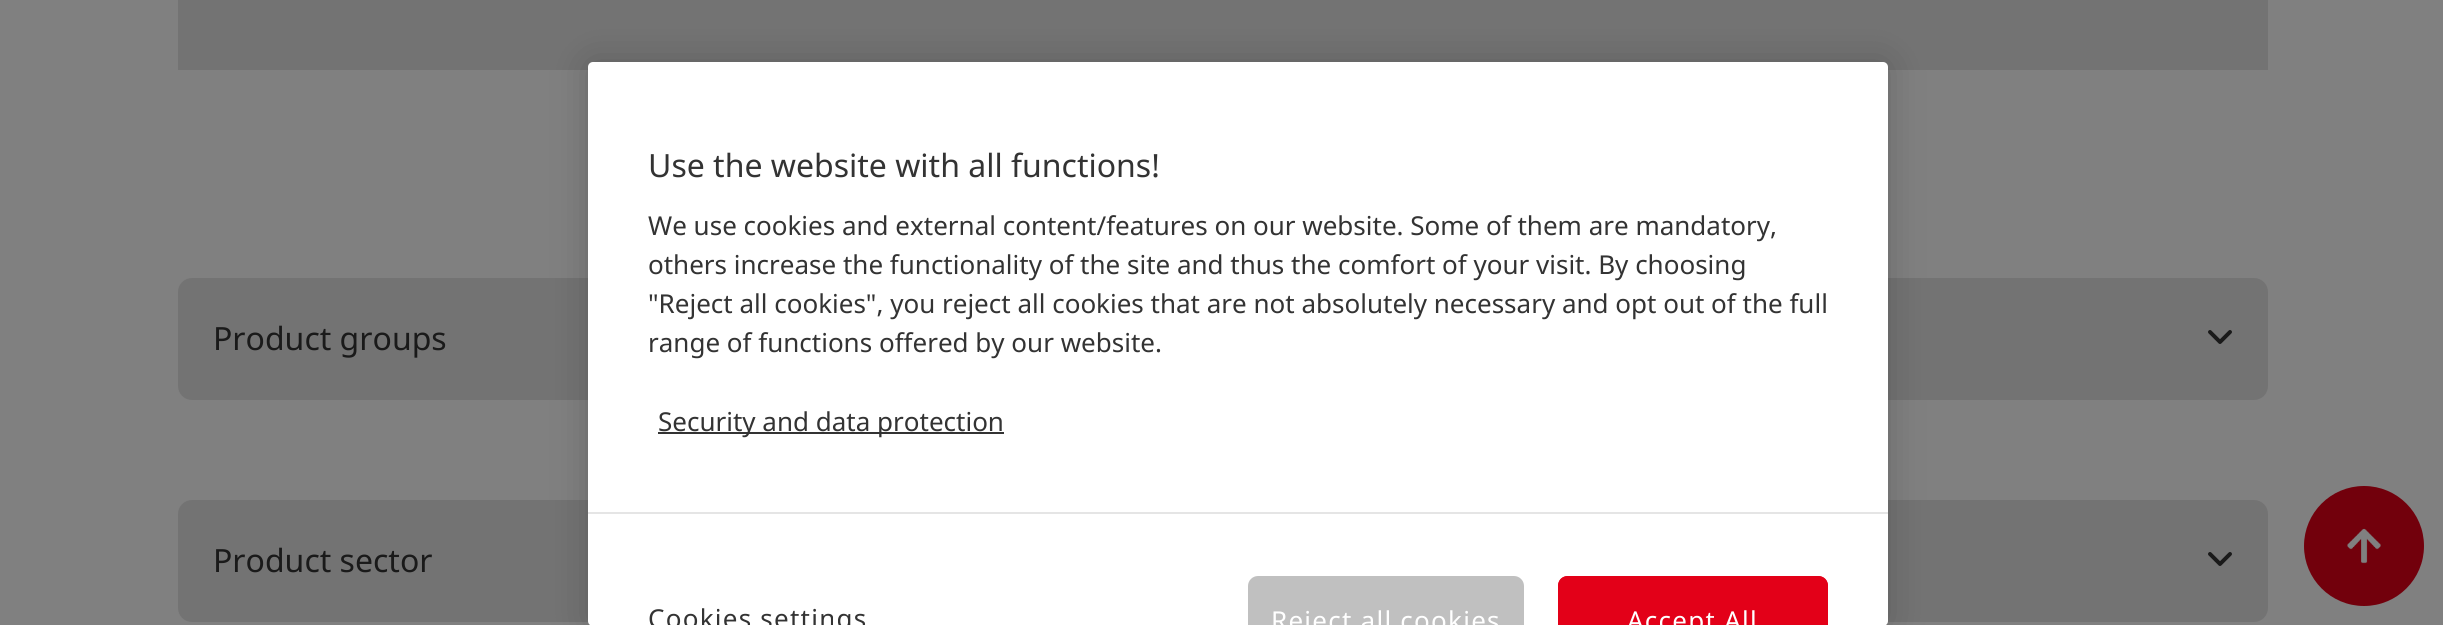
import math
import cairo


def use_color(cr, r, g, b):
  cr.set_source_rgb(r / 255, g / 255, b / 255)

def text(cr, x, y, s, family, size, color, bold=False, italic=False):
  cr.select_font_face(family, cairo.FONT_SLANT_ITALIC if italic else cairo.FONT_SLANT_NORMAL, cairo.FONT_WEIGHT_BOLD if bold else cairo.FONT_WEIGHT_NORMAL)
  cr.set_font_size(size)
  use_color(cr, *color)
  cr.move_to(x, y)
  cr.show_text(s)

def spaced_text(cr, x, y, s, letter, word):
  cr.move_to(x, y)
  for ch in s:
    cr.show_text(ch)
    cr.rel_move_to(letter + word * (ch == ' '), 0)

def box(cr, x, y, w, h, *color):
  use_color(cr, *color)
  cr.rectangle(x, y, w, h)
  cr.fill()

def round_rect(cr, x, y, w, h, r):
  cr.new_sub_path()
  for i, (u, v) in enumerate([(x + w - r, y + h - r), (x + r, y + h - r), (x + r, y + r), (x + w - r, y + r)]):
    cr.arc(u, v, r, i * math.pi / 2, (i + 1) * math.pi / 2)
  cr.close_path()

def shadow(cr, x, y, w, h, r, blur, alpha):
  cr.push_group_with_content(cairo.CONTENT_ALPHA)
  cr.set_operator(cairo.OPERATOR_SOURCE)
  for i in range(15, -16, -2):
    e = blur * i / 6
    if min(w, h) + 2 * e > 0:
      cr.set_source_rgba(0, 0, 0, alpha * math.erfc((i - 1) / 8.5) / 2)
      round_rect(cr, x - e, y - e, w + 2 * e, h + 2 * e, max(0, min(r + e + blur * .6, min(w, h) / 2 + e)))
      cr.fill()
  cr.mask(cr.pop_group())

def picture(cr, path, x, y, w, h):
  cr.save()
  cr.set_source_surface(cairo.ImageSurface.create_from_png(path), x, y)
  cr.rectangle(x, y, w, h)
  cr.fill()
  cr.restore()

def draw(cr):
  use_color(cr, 128, 128, 128)
  cr.paint()
  box(cr, 178, 0, 2090, 70, 115, 115, 115)
  round_rect(cr, 178, 278, 2090, 122, 14)
  cr.fill()
  picture(cr, "img_01.png", 2208, 330, 24, 14)
  round_rect(cr, 178, 500, 2090, 122, 14)
  cr.fill()
  picture(cr, "img_01.png", 2208, 552, 24, 14)
  use_color(cr, 0, 0, 0)
  shadow(cr, 588, 62, 1300, 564, 5, 18, 0.2)
  use_color(cr, 255, 255, 255)
  round_rect(cr, 588, 62, 1300, 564, 5)
  cr.fill()
  box(cr, 658, 432, 346, 2, 51, 51, 51)
  box(cr, 588, 512, 1300, 2, 229, 229, 229)
  use_color(cr, 192, 192, 192)
  cr.new_path()
  cr.move_to(1258, 576)
  cr.line_to(1514, 576)
  cr.curve_to(1519.5, 576, 1524, 580.5, 1524, 586)
  cr.line_to(1524, 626)
  cr.line_to(1248, 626)
  cr.line_to(1248, 586)
  cr.curve_to(1248, 580.5, 1252.5, 576, 1258, 576)
  cr.close_path()
  cr.fill()
  use_color(cr, 227, 0, 24)
  cr.new_path()
  cr.move_to(1568, 576)
  cr.line_to(1818, 576)
  cr.curve_to(1823.5, 576, 1828, 580.5, 1828, 586)
  cr.line_to(1828, 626)
  cr.line_to(1558, 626)
  cr.line_to(1558, 586)
  cr.curve_to(1558, 580.5, 1562.5, 576, 1568, 576)
  cr.close_path()
  cr.fill()
  cr.new_path()
  cr.move_to(1568, 576)
  cr.curve_to(1562, 576, 1558, 580, 1558, 586)
  cr.line_to(1558, 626)
  cr.line_to(1560, 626)
  cr.line_to(1560, 586)
  cr.curve_to(1560, 582, 1564, 578, 1568, 578)
  cr.line_to(1818, 578)
  cr.curve_to(1822, 578, 1826, 582, 1826, 586)
  cr.line_to(1826, 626)
  cr.line_to(1828, 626)
  cr.line_to(1828, 586)
  cr.curve_to(1828, 580, 1824, 576, 1818, 576)
  cr.close_path()
  cr.fill()
  use_color(cr, 114, 0, 12)
  cr.arc(2364, 546, 60, 0, 2 * math.pi)
  cr.fill()
  picture(cr, "img_02.png", 2347, 528, 34, 36)
  text(cr, 213, 350, "Product groups", "Noto Sans", 32, (26, 26, 26))
  text(cr, 213, 572, "Product sector", "Noto Sans", 32, (26, 26, 26))
  text(cr, 648, 177, "Use the website with all functions!", "Noto Sans", 32, (51, 51, 51))
  text(cr, 648, 235, "We use cookies and external content/features on our website. Some of them are mandatory,", "Noto Sans", 26, (51, 51, 51))
  text(cr, 648, 274, "others increase the functionality of the site and thus the comfort of your visit. By choosing", "Noto Sans", 26, (51, 51, 51))
  text(cr, 648, 313, "\"Reject all cookies\", you reject all cookies that are not absolutely necessary and opt out of the full", "Noto Sans", 26, (51, 51, 51))
  text(cr, 648, 352, "range of functions offered by our website.", "Noto Sans", 26, (51, 51, 51))
  text(cr, 658, 431, "Security and data protection", "Noto Sans", 26, (51, 51, 51))
  spaced_text(cr, 648, 628, "Cookies settings", 1.25, 0)
  use_color(cr, 255, 255, 255)
  spaced_text(cr, 1271, 630, "Reject all cookies", 1.25, 0)
  spaced_text(cr, 1627, 630, "Accept All", 1.25, 0)


surface = cairo.ImageSurface(cairo.FORMAT_RGB24, 2443, 625)
cr = cairo.Context(surface)
options = cairo.FontOptions()
options.set_hint_metrics(cairo.HINT_METRICS_OFF)
options.set_hint_style(cairo.HINT_STYLE_NONE)
cr.set_font_options(options)
cr.set_miter_limit(4)
draw(cr)
surface.write_to_png("out.png")
